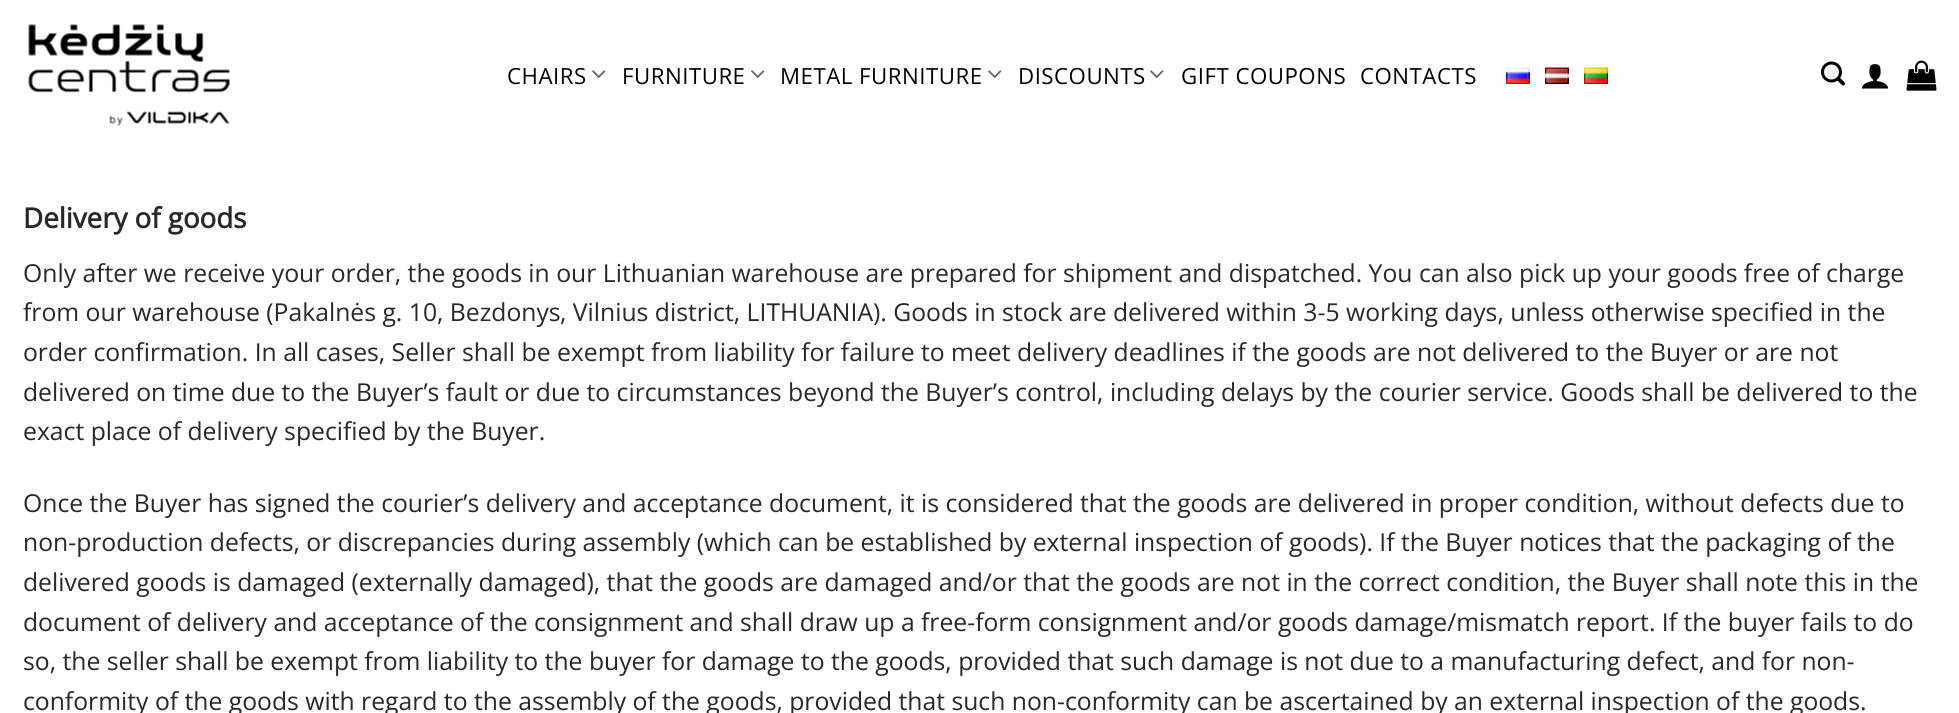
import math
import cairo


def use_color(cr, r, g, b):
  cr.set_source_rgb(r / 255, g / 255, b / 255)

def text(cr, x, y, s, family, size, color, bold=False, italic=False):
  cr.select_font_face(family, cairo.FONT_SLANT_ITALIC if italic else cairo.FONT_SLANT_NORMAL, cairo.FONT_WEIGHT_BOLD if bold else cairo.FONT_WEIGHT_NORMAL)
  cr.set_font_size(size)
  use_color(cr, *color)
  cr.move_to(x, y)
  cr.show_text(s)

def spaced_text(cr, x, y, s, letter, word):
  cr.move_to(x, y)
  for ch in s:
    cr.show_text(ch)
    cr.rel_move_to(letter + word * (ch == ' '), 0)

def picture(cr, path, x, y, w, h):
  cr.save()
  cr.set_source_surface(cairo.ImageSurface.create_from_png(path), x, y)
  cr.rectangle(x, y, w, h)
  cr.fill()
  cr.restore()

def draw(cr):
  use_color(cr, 255, 255, 255)
  cr.paint()
  picture(cr, "img_01.png", 28, 24, 202, 102)
  picture(cr, "img_02.png", 592, 70, 14, 8)
  picture(cr, "img_02.png", 751, 70, 14, 8)
  picture(cr, "img_02.png", 988, 70, 14, 8)
  picture(cr, "img_02.png", 1150, 70, 14, 8)
  picture(cr, "img_03.png", 1506, 67, 24, 17)
  picture(cr, "img_04.png", 1545, 67, 24, 17)
  picture(cr, "img_05.png", 1584, 67, 24, 17)
  picture(cr, "img_06.png", 1821, 61, 24, 25)
  picture(cr, "img_07.png", 1861, 64, 28, 25)
  picture(cr, "img_08.png", 1906, 60, 31, 31)
  cr.select_font_face("Open Sans")
  cr.set_font_size(22.25)
  use_color(cr, 0, 0, 0)
  spaced_text(cr, 507, 84, "CHAIRS", 0.5, 0)
  spaced_text(cr, 622, 84, "FURNITURE", 0.5, 0)
  spaced_text(cr, 780, 84, "METAL FURNITURE", 0.5, 0)
  spaced_text(cr, 1018, 84, "DISCOUNTS", 0.5, 0)
  spaced_text(cr, 1181, 84, "GIFT COUPONS", 0.5, 0)
  spaced_text(cr, 1360, 84, "CONTACTS", 0.5, 0)
  text(cr, 23, 228, "Delivery of goods", "Open Sans", 27.75, (40, 40, 40), bold=True)
  text(cr, 23, 282, "Only after we receive your order, the goods in our Lithuanian warehouse are prepared for shipment and dispatched. You can also pick up your goods free of charge", "Open Sans", 24.72, (40, 40, 40))
  text(cr, 23, 321, "from our warehouse (Pakalnės g. 10, Bezdonys", "Open Sans", 24.72, (40, 40, 40))
  text(cr, 560, 321, ", Vilnius district, LITHUANIA). Goods in stock are delivered within 3-5 working days, unless otherwise specified in the", "Open Sans", 24.72, (40, 40, 40))
  text(cr, 23, 361, "order confirmation. In all cases, Seller shall be exempt from liability for failure to meet delivery deadlines if the goods are not delivered to the Buyer or are not", "Open Sans", 24.72, (40, 40, 40))
  text(cr, 23, 401, "delivered on time due to the Buyer’s fault or due to circumstances beyond the Buyer’s control, including delays by the courier service. Goods shall be delivered to the", "Open Sans", 24.72, (40, 40, 40))
  text(cr, 23, 440, "exact place of delivery specified by the Buyer.", "Open Sans", 24.72, (40, 40, 40))
  text(cr, 23, 512, "Once the Buyer has signed the courier’s delivery and acceptance document, it is considered that the goods are delivered in proper condition, without defects due to", "Open Sans", 24.72, (40, 40, 40))
  text(cr, 23, 551, "non-production defects, or discrepancies during assembly (which can be established by external inspection of goods). If the Buyer notices that the packaging of the", "Open Sans", 24.72, (40, 40, 40))
  text(cr, 23, 591, "delivered goods is damaged (externally damaged), that the goods are damaged and/or that the goods are not in the correct condition, the Buyer shall note this in the", "Open Sans", 24.72, (40, 40, 40))
  text(cr, 23, 631, "document of delivery and acceptance of the consignment and shall draw up a free-form consignment and/or goods damage/mismatch report. If the buyer fails to do", "Open Sans", 24.72, (40, 40, 40))
  text(cr, 23, 670, "so, the seller shall be exempt from liability to the buyer for damage to the goods, provided that such damage is not due to a manufacturing defect, and for non-", "Open Sans", 24.72, (40, 40, 40))
  text(cr, 23, 710, "conformity of the goods with regard to the assembly of the goods, provided that such non-conformity can be ascertained by an external inspection of the goods.", "Open Sans", 24.72, (40, 40, 40))


surface = cairo.ImageSurface(cairo.FORMAT_RGB24, 1959, 713)
cr = cairo.Context(surface)
options = cairo.FontOptions()
options.set_hint_metrics(cairo.HINT_METRICS_OFF)
options.set_hint_style(cairo.HINT_STYLE_NONE)
cr.set_font_options(options)
cr.set_miter_limit(4)
draw(cr)
surface.write_to_png("out.png")
